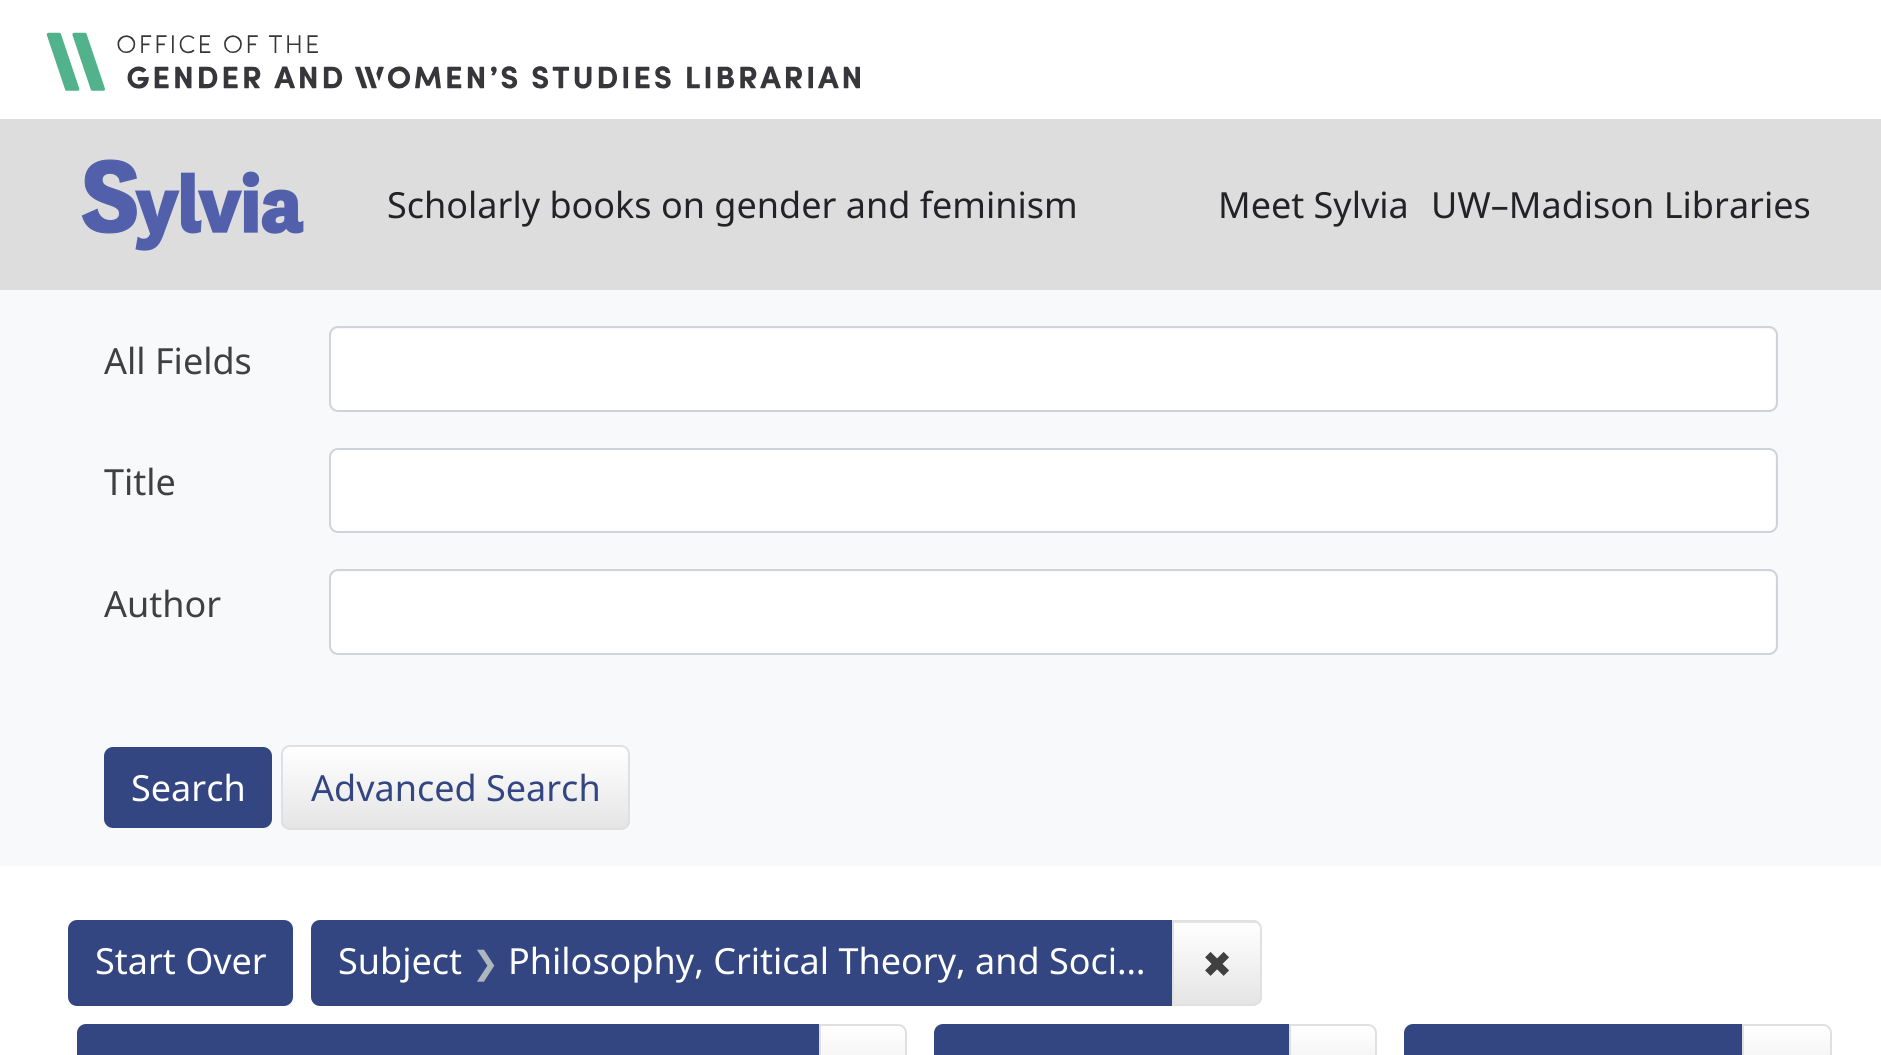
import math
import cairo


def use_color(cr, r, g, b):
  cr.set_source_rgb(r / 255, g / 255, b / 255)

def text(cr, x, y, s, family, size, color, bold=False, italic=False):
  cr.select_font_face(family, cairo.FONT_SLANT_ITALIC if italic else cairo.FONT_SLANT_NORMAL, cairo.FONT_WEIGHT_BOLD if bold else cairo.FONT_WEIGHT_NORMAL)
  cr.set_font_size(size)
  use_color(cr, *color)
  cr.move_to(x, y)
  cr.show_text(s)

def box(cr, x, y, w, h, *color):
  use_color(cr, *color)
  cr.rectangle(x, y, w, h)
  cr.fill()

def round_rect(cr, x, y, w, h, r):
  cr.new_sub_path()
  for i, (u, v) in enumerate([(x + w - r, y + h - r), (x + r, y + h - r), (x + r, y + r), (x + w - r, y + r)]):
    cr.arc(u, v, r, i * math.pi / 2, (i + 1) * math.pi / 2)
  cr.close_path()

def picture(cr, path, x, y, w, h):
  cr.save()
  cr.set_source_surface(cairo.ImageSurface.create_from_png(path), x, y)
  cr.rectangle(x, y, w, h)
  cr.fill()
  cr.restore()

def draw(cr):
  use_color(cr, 255, 255, 255)
  cr.paint()
  picture(cr, "img_01.png", 46, 32, 814, 59)
  box(cr, 0, 119, 1881, 171, 221, 221, 221)
  picture(cr, "img_02.png", 81, 159, 223, 92)
  box(cr, 0, 290, 1881, 576, 248, 249, 250)
  use_color(cr, 255, 255, 255)
  round_rect(cr, 331, 329, 1444, 81, 7)
  cr.fill()
  round_rect(cr, 330, 327, 1447, 84, 8)
  use_color(cr, 206, 212, 218)
  cr.stroke()
  use_color(cr, 255, 255, 255)
  round_rect(cr, 331, 450, 1444, 81, 7)
  cr.fill()
  round_rect(cr, 330, 449, 1447, 83, 8)
  use_color(cr, 206, 212, 218)
  cr.stroke()
  use_color(cr, 255, 255, 255)
  round_rect(cr, 331, 572, 1444, 81, 7)
  cr.fill()
  round_rect(cr, 330, 570, 1447, 84, 8)
  use_color(cr, 206, 212, 218)
  cr.stroke()
  use_color(cr, 51, 70, 130)
  round_rect(cr, 104, 747, 168, 81, 9)
  cr.fill()
  cr.save()
  round_rect(cr, 281, 745, 349, 85, 9)
  cr.clip()
  gradient = cairo.LinearGradient(456, 747, 456, 828)
  gradient.add_color_stop_rgba(0, 1, 1, 1, 1)
  gradient.add_color_stop_rgba(1, 0.898, 0.898, 0.898, 1)
  cr.set_source(gradient)
  cr.rectangle(281, 747, 349, 81)
  cr.fill()
  cr.restore()
  round_rect(cr, 282, 746, 347, 83, 8)
  use_color(cr, 224, 224, 224)
  cr.stroke()
  use_color(cr, 51, 70, 130)
  round_rect(cr, 68, 920, 225, 86, 9)
  cr.fill()
  cr.new_path()
  cr.move_to(320, 920)
  cr.line_to(1175, 920)
  cr.line_to(1175, 1006)
  cr.line_to(320, 1006)
  cr.curve_to(315, 1006, 311, 1002, 311, 997)
  cr.line_to(311, 929)
  cr.curve_to(311, 924, 315, 920, 320, 920)
  cr.close_path()
  cr.fill()
  cr.save()
  cr.new_path()
  cr.move_to(1172, 920)
  cr.line_to(1253, 920)
  cr.curve_to(1258, 920, 1262, 924, 1262, 929)
  cr.line_to(1262, 997)
  cr.curve_to(1262, 1002, 1258, 1006, 1253, 1006)
  cr.line_to(1172, 1006)
  cr.close_path()
  cr.clip()
  gradient = cairo.LinearGradient(1217, 842, 1217, 923)
  gradient.add_color_stop_rgba(0, 1, 1, 1, 1)
  gradient.add_color_stop_rgba(1, 0.898, 0.898, 0.898, 1)
  cr.set_source(gradient)
  cr.rectangle(1172, 920, 90, 3)
  cr.fill()
  gradient = cairo.LinearGradient(1217, 923, 1217, 1004)
  gradient.add_color_stop_rgba(0, 1, 1, 1, 1)
  gradient.add_color_stop_rgba(1, 0.898, 0.898, 0.898, 1)
  cr.set_source(gradient)
  cr.rectangle(1174, 923, 88, 81)
  cr.fill()
  cr.restore()
  cr.new_path()
  cr.move_to(1173, 921)
  cr.line_to(1253, 921)
  cr.curve_to(1257.5, 921, 1261, 924.5, 1261, 929)
  cr.line_to(1261, 997)
  cr.curve_to(1261, 1001.5, 1257.5, 1005, 1253, 1005)
  cr.line_to(1173, 1005)
  cr.close_path()
  use_color(cr, 224, 224, 224)
  cr.stroke()
  use_color(cr, 51, 70, 130)
  cr.new_path()
  cr.move_to(86, 1024)
  cr.line_to(821, 1024)
  cr.line_to(821, 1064)
  cr.line_to(86, 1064)
  cr.curve_to(81, 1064, 77, 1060, 77, 1055)
  cr.line_to(77, 1033)
  cr.curve_to(77, 1028, 81, 1024, 86, 1024)
  cr.close_path()
  cr.fill()
  cr.save()
  cr.new_path()
  cr.move_to(819, 1024)
  cr.line_to(898, 1024)
  cr.curve_to(903, 1024, 907, 1028, 907, 1033)
  cr.line_to(907, 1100)
  cr.curve_to(907, 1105, 903, 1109, 898, 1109)
  cr.line_to(819, 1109)
  cr.close_path()
  cr.clip()
  gradient = cairo.LinearGradient(863, 1026, 863, 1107)
  gradient.add_color_stop_rgba(0, 1, 1, 1, 1)
  gradient.add_color_stop_rgba(1, 0.898, 0.898, 0.898, 1)
  cr.set_source(gradient)
  cr.rectangle(821, 1026, 86, 29)
  cr.fill()
  cr.restore()
  cr.new_path()
  cr.move_to(820, 1025)
  cr.line_to(898, 1025)
  cr.curve_to(902.5, 1025, 906, 1028.5, 906, 1033)
  cr.line_to(906, 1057)
  cr.curve_to(906, 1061.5, 902.5, 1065, 898, 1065)
  cr.line_to(820, 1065)
  cr.close_path()
  use_color(cr, 224, 224, 224)
  cr.stroke()
  use_color(cr, 51, 70, 130)
  cr.new_path()
  cr.move_to(943, 1024)
  cr.line_to(1292, 1024)
  cr.line_to(1292, 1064)
  cr.line_to(943, 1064)
  cr.curve_to(938, 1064, 934, 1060, 934, 1055)
  cr.line_to(934, 1033)
  cr.curve_to(934, 1028, 938, 1024, 943, 1024)
  cr.close_path()
  cr.fill()
  cr.save()
  cr.new_path()
  cr.move_to(1289, 1024)
  cr.line_to(1368, 1024)
  cr.curve_to(1373, 1024, 1377, 1028, 1377, 1033)
  cr.line_to(1377, 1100)
  cr.curve_to(1377, 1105, 1373, 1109, 1368, 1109)
  cr.line_to(1289, 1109)
  cr.close_path()
  cr.clip()
  gradient = cairo.LinearGradient(1333, 1026, 1333, 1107)
  gradient.add_color_stop_rgba(0, 1, 1, 1, 1)
  gradient.add_color_stop_rgba(1, 0.898, 0.898, 0.898, 1)
  cr.set_source(gradient)
  cr.rectangle(1291, 1026, 86, 29)
  cr.fill()
  cr.restore()
  cr.new_path()
  cr.move_to(1290, 1025)
  cr.line_to(1368, 1025)
  cr.curve_to(1372.5, 1025, 1376, 1028.5, 1376, 1033)
  cr.line_to(1376, 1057)
  cr.curve_to(1376, 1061.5, 1372.5, 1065, 1368, 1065)
  cr.line_to(1290, 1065)
  cr.close_path()
  use_color(cr, 224, 224, 224)
  cr.stroke()
  use_color(cr, 51, 70, 130)
  cr.new_path()
  cr.move_to(1413, 1024)
  cr.line_to(1744, 1024)
  cr.line_to(1744, 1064)
  cr.line_to(1413, 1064)
  cr.curve_to(1408, 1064, 1404, 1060, 1404, 1055)
  cr.line_to(1404, 1033)
  cr.curve_to(1404, 1028, 1408, 1024, 1413, 1024)
  cr.close_path()
  cr.fill()
  cr.save()
  cr.new_path()
  cr.move_to(1742, 1024)
  cr.line_to(1823, 1024)
  cr.curve_to(1828, 1024, 1832, 1028, 1832, 1033)
  cr.line_to(1832, 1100)
  cr.curve_to(1832, 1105, 1828, 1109, 1823, 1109)
  cr.line_to(1742, 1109)
  cr.close_path()
  cr.clip()
  gradient = cairo.LinearGradient(1787, 1026, 1787, 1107)
  gradient.add_color_stop_rgba(0, 1, 1, 1, 1)
  gradient.add_color_stop_rgba(1, 0.898, 0.898, 0.898, 1)
  cr.set_source(gradient)
  cr.rectangle(1744, 1026, 88, 29)
  cr.fill()
  cr.restore()
  cr.new_path()
  cr.move_to(1743, 1025)
  cr.line_to(1823, 1025)
  cr.curve_to(1827.5, 1025, 1831, 1028.5, 1831, 1033)
  cr.line_to(1831, 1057)
  cr.curve_to(1831, 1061.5, 1827.5, 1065, 1823, 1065)
  cr.line_to(1743, 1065)
  cr.close_path()
  use_color(cr, 224, 224, 224)
  cr.stroke()
  text(cr, 387, 218, "Scholarly books on gender and feminism", "Noto Sans", 36, (35, 34, 38))
  text(cr, 1218, 218, "Meet Sylvia", "Noto Sans", 36, (35, 34, 38))
  text(cr, 1431, 218, "UW–Madison Libraries", "Noto Sans", 36, (35, 34, 38))
  text(cr, 104, 374, "All Fields", "Noto Sans", 36, (64, 64, 64))
  text(cr, 104, 495, "Title", "Noto Sans", 36, (64, 64, 64))
  text(cr, 104, 617, "Author", "Noto Sans", 36, (64, 64, 64))
  text(cr, 131, 801, "Search", "Noto Sans", 36, (255, 255, 255))
  text(cr, 311, 801, "Advanced Search", "Noto Sans", 36, (51, 70, 130))
  text(cr, 95, 974, "Start Over", "Noto Sans", 36, (255, 255, 255))
  text(cr, 338, 974, "Subject", "Noto Sans", 36, (255, 255, 255))
  text(cr, 472, 974, "❯", "DejaVu Sans", 32, (173, 181, 189))
  text(cr, 508, 974, "Philosophy, Critical Theory, and Soci…", "Noto Sans", 36, (255, 255, 255))
  text(cr, 1202, 977, "✖", "DejaVu Sans", 36, (64, 64, 64))


surface = cairo.ImageSurface(cairo.FORMAT_RGB24, 1881, 1055)
cr = cairo.Context(surface)
options = cairo.FontOptions()
options.set_hint_metrics(cairo.HINT_METRICS_OFF)
options.set_hint_style(cairo.HINT_STYLE_NONE)
cr.set_font_options(options)
cr.set_miter_limit(4)
draw(cr)
surface.write_to_png("out.png")
